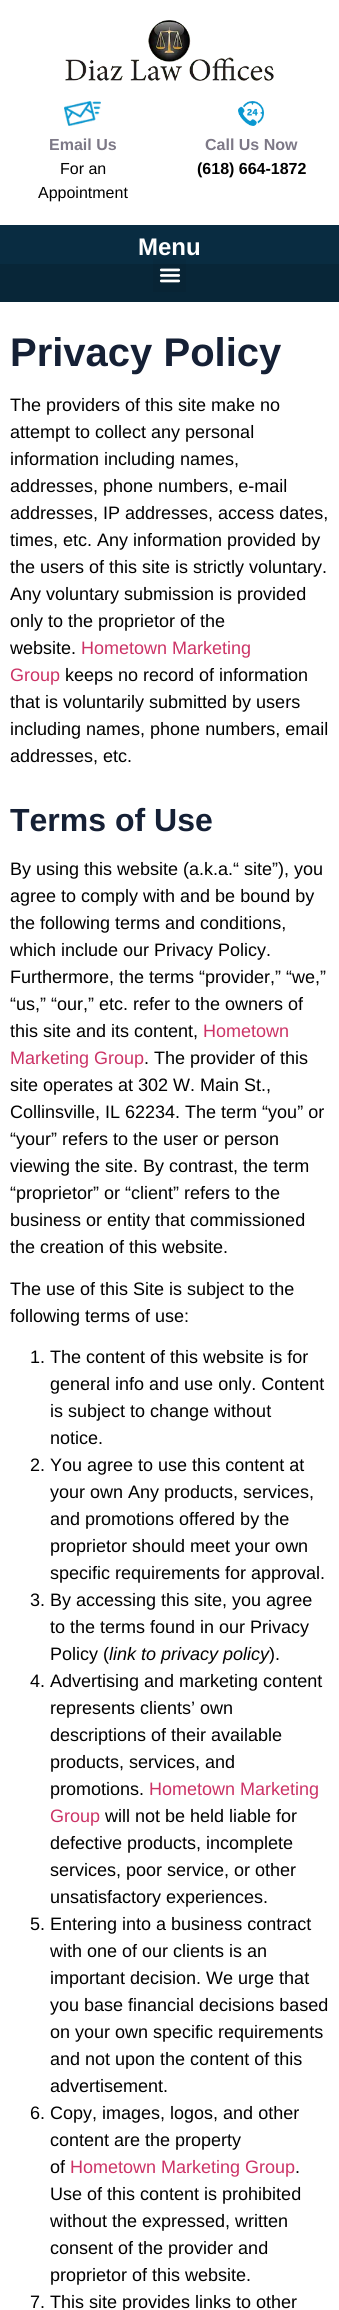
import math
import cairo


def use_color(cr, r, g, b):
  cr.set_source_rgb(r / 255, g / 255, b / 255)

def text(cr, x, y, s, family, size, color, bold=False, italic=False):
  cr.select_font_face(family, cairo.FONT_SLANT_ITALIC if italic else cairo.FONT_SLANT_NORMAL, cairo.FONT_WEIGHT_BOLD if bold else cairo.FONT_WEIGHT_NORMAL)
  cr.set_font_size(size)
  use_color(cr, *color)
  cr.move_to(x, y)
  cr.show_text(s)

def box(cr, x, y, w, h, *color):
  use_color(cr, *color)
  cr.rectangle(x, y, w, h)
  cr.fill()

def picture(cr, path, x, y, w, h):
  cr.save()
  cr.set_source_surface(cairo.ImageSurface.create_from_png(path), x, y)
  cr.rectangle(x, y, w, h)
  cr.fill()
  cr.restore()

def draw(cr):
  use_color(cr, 255, 255, 255)
  cr.paint()
  picture(cr, "img_01.png", 65, 20, 209, 61)
  picture(cr, "img_02.png", 64, 101, 37, 25)
  picture(cr, "img_03.png", 238, 101, 26, 25)
  box(cr, 0, 225, 339, 39, 9, 44, 65)
  box(cr, 0, 264, 339, 38, 8, 38, 56)
  cr.set_source_rgba(0, 0, 0, 0.05)
  cr.rectangle(153, 259, 33, 33)
  cr.fill()
  picture(cr, "img_04.png", 159, 268, 22, 15)
  text(cr, 49, 150, "Email Us", "Liberation Sans", 16, (125, 121, 135), bold=True)
  text(cr, 60, 174, "For an", "Liberation Sans", 16, (0, 0, 0))
  text(cr, 38, 198, "Appointment", "Liberation Sans", 16, (0, 0, 0))
  text(cr, 205, 150, "Call Us Now", "Liberation Sans", 16, (125, 121, 135), bold=True)
  text(cr, 197, 174, "(618) 664-1872", "Liberation Sans", 16, (0, 0, 0), bold=True)
  text(cr, 138, 255, "Menu", "Liberation Sans", 24, (255, 255, 255), bold=True)
  text(cr, 10, 366, "Privacy Policy", "Liberation Sans", 40, (21, 32, 53), bold=True)
  text(cr, 10, 411, "The providers of this site make no", "Liberation Sans", 18, (0, 0, 0))
  text(cr, 10, 438, "attempt to collect any personal", "Liberation Sans", 18, (0, 0, 0))
  text(cr, 10, 465, "information including names,", "Liberation Sans", 18, (0, 0, 0))
  text(cr, 10, 492, "addresses, phone numbers, e-mail", "Liberation Sans", 18, (0, 0, 0))
  text(cr, 10, 519, "addresses, IP addresses, access dates,", "Liberation Sans", 18, (0, 0, 0))
  text(cr, 10, 546, "times, etc. Any information provided by", "Liberation Sans", 18, (0, 0, 0))
  text(cr, 10, 573, "the users of this site is strictly voluntary.", "Liberation Sans", 18, (0, 0, 0))
  text(cr, 10, 600, "Any voluntary submission is provided", "Liberation Sans", 18, (0, 0, 0))
  text(cr, 10, 627, "only to the proprietor of the", "Liberation Sans", 18, (0, 0, 0))
  text(cr, 10, 654, "website.", "Liberation Sans", 18, (0, 0, 0))
  text(cr, 81, 654, "Hometown Marketing", "Liberation Sans", 18, (204, 51, 102))
  text(cr, 10, 681, "Group", "Liberation Sans", 18, (204, 51, 102))
  text(cr, 65, 681, "keeps no record of information", "Liberation Sans", 18, (0, 0, 0))
  text(cr, 10, 708, "that is voluntarily submitted by users", "Liberation Sans", 18, (0, 0, 0))
  text(cr, 10, 735, "including names, phone numbers, email", "Liberation Sans", 18, (0, 0, 0))
  text(cr, 10, 762, "addresses, etc.", "Liberation Sans", 18, (0, 0, 0))
  text(cr, 10, 831, "Terms of Use", "Liberation Sans", 32, (21, 32, 53), bold=True)
  text(cr, 10, 875, "By using this website (a.k.a.“ site”), you", "Liberation Sans", 18, (0, 0, 0))
  text(cr, 10, 902, "agree to comply with and be bound by", "Liberation Sans", 18, (0, 0, 0))
  text(cr, 10, 929, "the following terms and conditions,", "Liberation Sans", 18, (0, 0, 0))
  text(cr, 10, 956, "which include our Privacy Policy.", "Liberation Sans", 18, (0, 0, 0))
  text(cr, 10, 983, "Furthermore, the terms “provider,” “we,”", "Liberation Sans", 18, (0, 0, 0))
  text(cr, 10, 1010, "“us,” “our,” etc. refer to the owners of", "Liberation Sans", 18, (0, 0, 0))
  text(cr, 10, 1037, "this site and its content,", "Liberation Sans", 18, (0, 0, 0))
  text(cr, 203, 1037, "Hometown", "Liberation Sans", 18, (204, 51, 102))
  text(cr, 10, 1064, "Marketing Group", "Liberation Sans", 18, (204, 51, 102))
  text(cr, 144, 1064, ". The provider of this", "Liberation Sans", 18, (0, 0, 0))
  text(cr, 10, 1091, "site operates at 302 W. Main St.,", "Liberation Sans", 18, (0, 0, 0))
  text(cr, 10, 1118, "Collinsville, IL 62234. The term “you” or", "Liberation Sans", 18, (0, 0, 0))
  text(cr, 10, 1145, "“your” refers to the user or person", "Liberation Sans", 18, (0, 0, 0))
  text(cr, 10, 1172, "viewing the site. By contrast, the term", "Liberation Sans", 18, (0, 0, 0))
  text(cr, 10, 1199, "“proprietor” or “client” refers to the", "Liberation Sans", 18, (0, 0, 0))
  text(cr, 10, 1226, "business or entity that commissioned", "Liberation Sans", 18, (0, 0, 0))
  text(cr, 10, 1253, "the creation of this website.", "Liberation Sans", 18, (0, 0, 0))
  text(cr, 10, 1295, "The use of this Site is subject to the", "Liberation Sans", 18, (0, 0, 0))
  text(cr, 10, 1322, "following terms of use:", "Liberation Sans", 18, (0, 0, 0))
  text(cr, 30, 1363, "1. The content of this website is for", "Liberation Sans", 18, (0, 0, 0))
  text(cr, 50, 1390, "general info and use only. Content", "Liberation Sans", 18, (0, 0, 0))
  text(cr, 50, 1417, "is subject to change without", "Liberation Sans", 18, (0, 0, 0))
  text(cr, 50, 1444, "notice.", "Liberation Sans", 18, (0, 0, 0))
  text(cr, 30, 1471, "2. You agree to use this content at", "Liberation Sans", 18, (0, 0, 0))
  text(cr, 50, 1498, "your own Any products, services,", "Liberation Sans", 18, (0, 0, 0))
  text(cr, 50, 1525, "and promotions offered by the", "Liberation Sans", 18, (0, 0, 0))
  text(cr, 50, 1552, "proprietor should meet your own", "Liberation Sans", 18, (0, 0, 0))
  text(cr, 50, 1579, "specific requirements for approval.", "Liberation Sans", 18, (0, 0, 0))
  text(cr, 30, 1606, "3. By accessing this site, you agree", "Liberation Sans", 18, (0, 0, 0))
  text(cr, 50, 1633, "to the terms found in our Privacy", "Liberation Sans", 18, (0, 0, 0))
  text(cr, 50, 1660, "Policy (", "Liberation Sans", 18, (0, 0, 0))
  text(cr, 109, 1660, "link to privacy policy", "Liberation Sans", 18, (0, 0, 0), italic=True)
  text(cr, 269, 1660, ").", "Liberation Sans", 18, (0, 0, 0))
  text(cr, 30, 1687, "4. Advertising and marketing content", "Liberation Sans", 18, (0, 0, 0))
  text(cr, 50, 1714, "represents clients’ own", "Liberation Sans", 18, (0, 0, 0))
  text(cr, 50, 1741, "descriptions of their available", "Liberation Sans", 18, (0, 0, 0))
  text(cr, 50, 1768, "products, services, and", "Liberation Sans", 18, (0, 0, 0))
  text(cr, 50, 1795, "promotions.", "Liberation Sans", 18, (0, 0, 0))
  text(cr, 149, 1795, "Hometown Marketing", "Liberation Sans", 18, (204, 51, 102))
  text(cr, 50, 1822, "Group", "Liberation Sans", 18, (204, 51, 102))
  text(cr, 105, 1822, "will not be held liable for", "Liberation Sans", 18, (0, 0, 0))
  text(cr, 50, 1849, "defective products, incomplete", "Liberation Sans", 18, (0, 0, 0))
  text(cr, 50, 1876, "services, poor service, or other", "Liberation Sans", 18, (0, 0, 0))
  text(cr, 50, 1903, "unsatisfactory experiences.", "Liberation Sans", 18, (0, 0, 0))
  text(cr, 30, 1930, "5. Entering into a business contract", "Liberation Sans", 18, (0, 0, 0))
  text(cr, 50, 1957, "with one of our clients is an", "Liberation Sans", 18, (0, 0, 0))
  text(cr, 50, 1984, "important decision. We urge that", "Liberation Sans", 18, (0, 0, 0))
  text(cr, 50, 2011, "you base financial decisions based", "Liberation Sans", 18, (0, 0, 0))
  text(cr, 50, 2038, "on your own specific requirements", "Liberation Sans", 18, (0, 0, 0))
  text(cr, 50, 2065, "and not upon the content of this", "Liberation Sans", 18, (0, 0, 0))
  text(cr, 50, 2092, "advertisement.", "Liberation Sans", 18, (0, 0, 0))
  text(cr, 30, 2119, "6. Copy, images, logos, and other", "Liberation Sans", 18, (0, 0, 0))
  text(cr, 50, 2146, "content are the property", "Liberation Sans", 18, (0, 0, 0))
  text(cr, 50, 2173, "of", "Liberation Sans", 18, (0, 0, 0))
  text(cr, 70, 2173, "Hometown Marketing Group", "Liberation Sans", 18, (204, 51, 102))
  text(cr, 295, 2173, ".", "Liberation Sans", 18, (0, 0, 0))
  text(cr, 50, 2200, "Use of this content is prohibited", "Liberation Sans", 18, (0, 0, 0))
  text(cr, 50, 2227, "without the expressed, written", "Liberation Sans", 18, (0, 0, 0))
  text(cr, 50, 2254, "consent of the provider and", "Liberation Sans", 18, (0, 0, 0))
  text(cr, 50, 2281, "proprietor of this website.", "Liberation Sans", 18, (0, 0, 0))
  text(cr, 30, 2308, "7. This site provides links to other", "Liberation Sans", 18, (0, 0, 0))


surface = cairo.ImageSurface(cairo.FORMAT_RGB24, 339, 2310)
cr = cairo.Context(surface)
options = cairo.FontOptions()
options.set_hint_metrics(cairo.HINT_METRICS_OFF)
options.set_hint_style(cairo.HINT_STYLE_NONE)
cr.set_font_options(options)
cr.set_miter_limit(4)
draw(cr)
surface.write_to_png("out.png")
